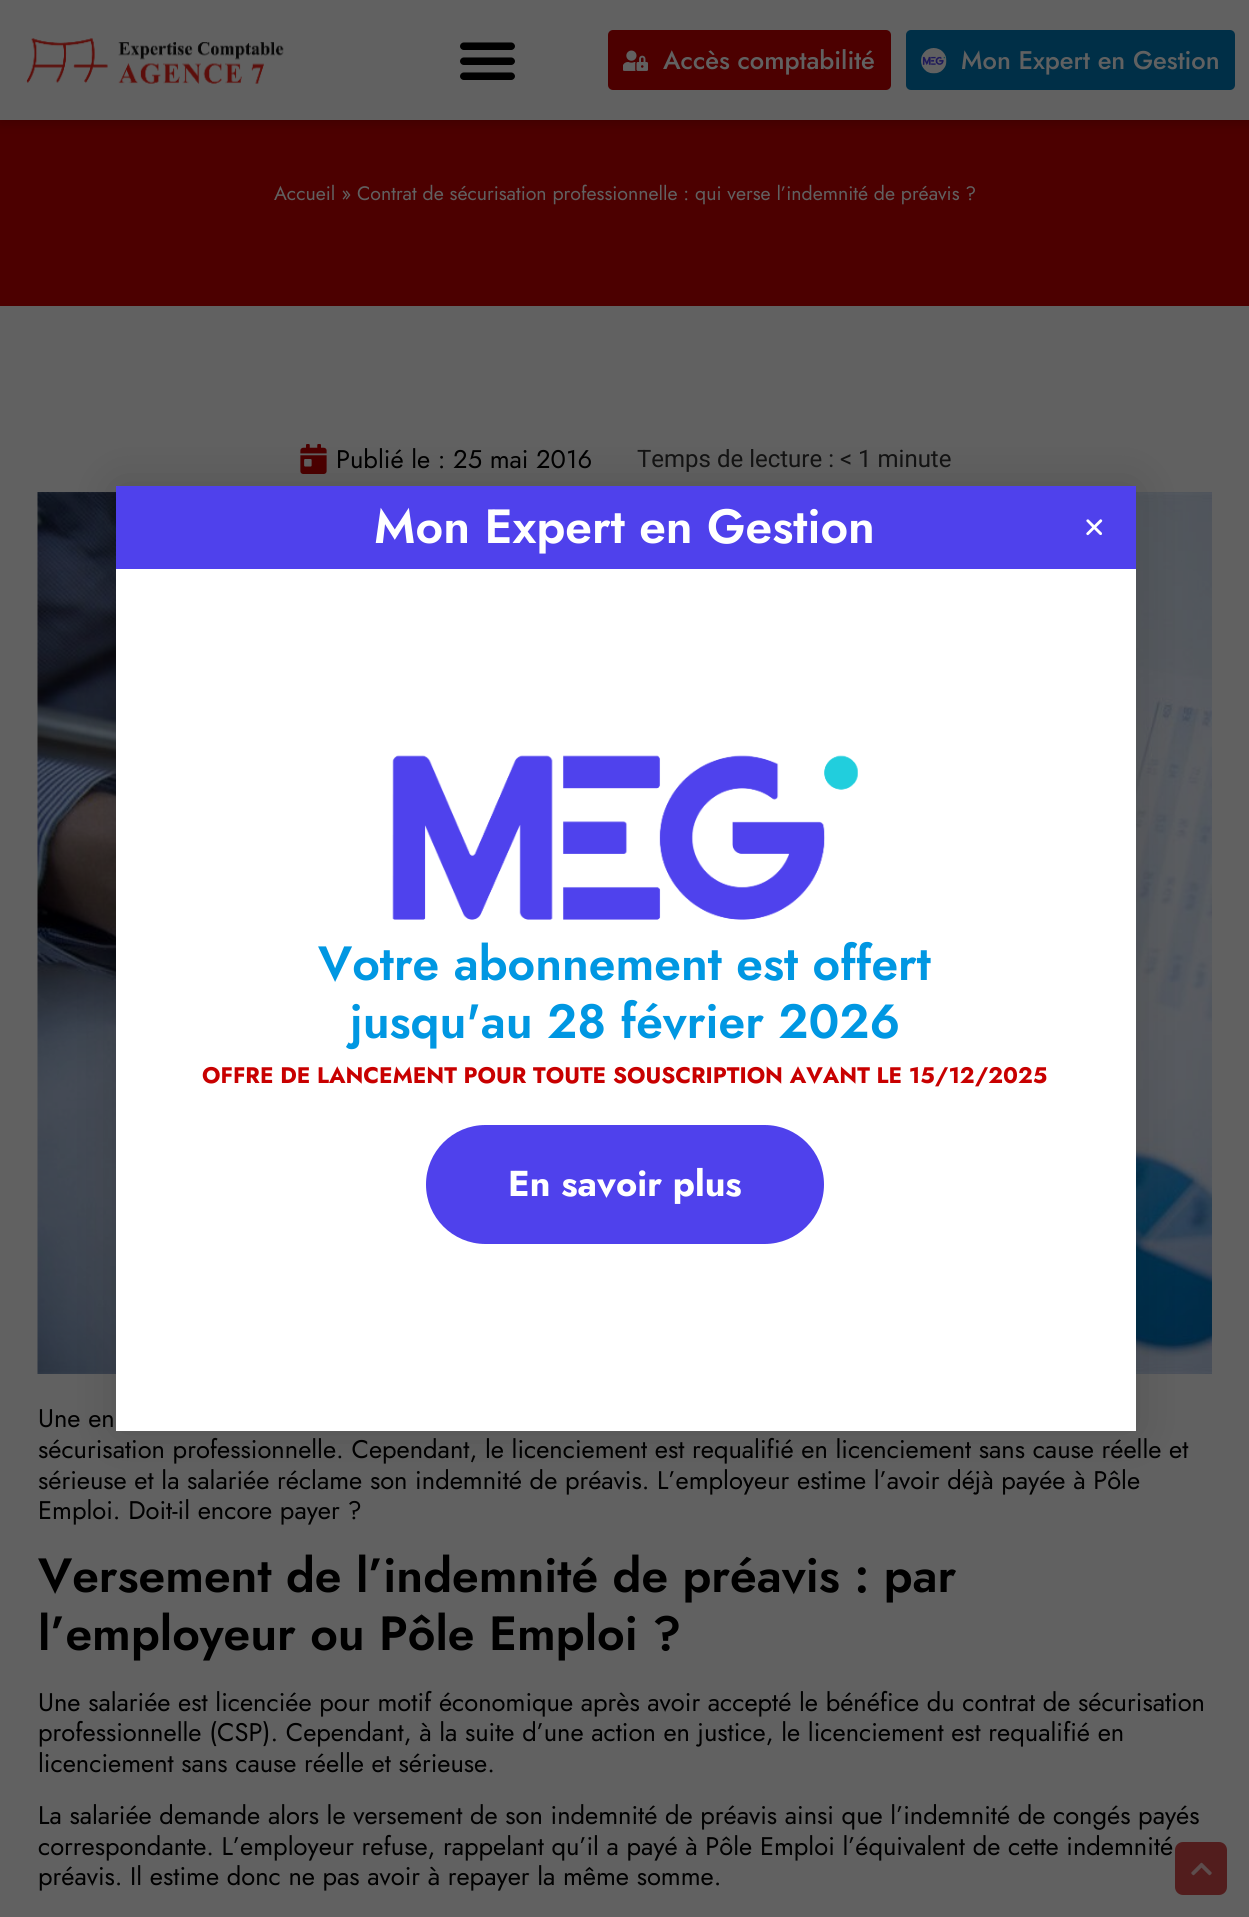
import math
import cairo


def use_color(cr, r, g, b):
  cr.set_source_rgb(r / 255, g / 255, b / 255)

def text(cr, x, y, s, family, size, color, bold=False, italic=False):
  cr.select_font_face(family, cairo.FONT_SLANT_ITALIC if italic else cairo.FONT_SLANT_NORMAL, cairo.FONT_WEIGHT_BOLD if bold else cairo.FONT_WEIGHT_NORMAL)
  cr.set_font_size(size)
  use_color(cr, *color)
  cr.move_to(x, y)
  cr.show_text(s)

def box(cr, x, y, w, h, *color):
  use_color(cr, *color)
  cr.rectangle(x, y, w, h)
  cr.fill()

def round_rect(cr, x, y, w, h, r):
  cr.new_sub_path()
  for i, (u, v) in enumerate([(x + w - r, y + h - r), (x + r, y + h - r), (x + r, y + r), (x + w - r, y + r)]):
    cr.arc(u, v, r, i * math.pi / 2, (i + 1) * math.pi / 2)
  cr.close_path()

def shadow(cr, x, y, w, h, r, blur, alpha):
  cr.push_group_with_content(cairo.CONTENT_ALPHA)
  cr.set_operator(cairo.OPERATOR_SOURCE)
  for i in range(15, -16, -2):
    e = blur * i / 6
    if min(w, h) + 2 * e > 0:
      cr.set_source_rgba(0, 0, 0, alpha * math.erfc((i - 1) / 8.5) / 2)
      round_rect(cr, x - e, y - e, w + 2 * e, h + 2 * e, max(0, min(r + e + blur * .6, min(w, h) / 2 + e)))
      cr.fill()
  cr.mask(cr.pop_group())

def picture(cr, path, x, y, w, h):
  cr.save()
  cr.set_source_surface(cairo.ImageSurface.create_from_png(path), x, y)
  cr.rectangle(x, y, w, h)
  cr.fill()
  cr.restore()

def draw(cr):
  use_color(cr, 97, 97, 97)
  cr.paint()
  box(cr, 0, 120, 1249, 186, 76, 0, 0)
  use_color(cr, 0, 0, 0)
  shadow(cr, 0, 0, 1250, 120, 0, 7.5, 0.25)
  box(cr, 0, 0, 1249, 120, 97, 97, 97)
  picture(cr, "img_01.png", 26, 38, 258, 46)
  picture(cr, "img_02.png", 460, 42, 55, 38)
  use_color(cr, 76, 0, 0)
  round_rect(cr, 608, 30, 283, 60, 5)
  cr.fill()
  picture(cr, "img_03.png", 623, 50, 25, 21)
  use_color(cr, 0, 47, 71)
  round_rect(cr, 906, 30, 329, 60, 5)
  cr.fill()
  picture(cr, "img_04.png", 921, 48, 26, 26)
  picture(cr, "img_05.png", 300, 444, 27, 30)
  picture(cr, "img_06.png", 37, 492, 1175, 882)
  use_color(cr, 0, 0, 0)
  shadow(cr, 116, 486, 1020, 945, 0, 26, 0.15)
  box(cr, 116, 569, 1020, 862, 255, 255, 255)
  box(cr, 116, 486, 1020, 83, 79, 65, 236)
  picture(cr, "img_07.png", 392, 755, 466, 165)
  round_rect(cr, 426, 1125, 398, 119, 59.5)
  cr.fill()
  picture(cr, "img_08.png", 1086, 519, 17, 17)
  cr.set_source_rgba(0.298, 0, 0, 0.7)
  round_rect(cr, 1175, 1842, 52, 53, 8)
  cr.fill()
  picture(cr, "img_09.png", 1191, 1862, 21, 14)
  text(cr, 663, 69, "Accès comptabilité", "Jost Medium", 25.5, (97, 97, 97))
  text(cr, 961, 69, "Mon Expert en Gestion", "Jost Medium", 25.5, (97, 97, 97))
  text(cr, 274, 200, "Accueil » Contrat de sécurisation professionnelle : qui verse l’indemnité de préavis ?", "Jost", 19.5, (97, 97, 97))
  text(cr, 336, 468, "Publié le : 25 mai 2016", "Jost", 25.5, (0, 0, 0))
  text(cr, 637, 467, "Temps de lecture : < 1 minute", "Roboto", 24, (19, 19, 19))
  text(cr, 38, 1427, "Une en", "Jost", 25.5, (0, 0, 0))
  text(cr, 38, 1458, "sécurisation professionnelle. Cependant, le licenciement est requalifié en licenciement sans cause réelle et", "Jost", 25.5, (0, 0, 0))
  text(cr, 38, 1489, "sérieuse et la salariée réclame son indemnité de préavis. L’employeur estime l’avoir déjà payée à Pôle", "Jost", 25.5, (0, 0, 0))
  text(cr, 38, 1519, "Emploi. Doit-il encore payer ?", "Jost", 25.5, (0, 0, 0))
  text(cr, 38, 1592, "Versement de l’indemnité de préavis : par", "Jost SemiBold", 48, (0, 0, 0))
  text(cr, 38, 1650, "l’employeur ou Pôle Emploi ?", "Jost SemiBold", 48, (0, 0, 0))
  text(cr, 38, 1711, "Une salariée est licenciée pour motif économique après avoir accepté le bénéfice du contrat de sécurisation", "Jost", 25.5, (0, 0, 0))
  text(cr, 38, 1741, "professionnelle (CSP). Cependant, à la suite d’une action en justice, le licenciement est requalifié en", "Jost", 25.5, (0, 0, 0))
  text(cr, 38, 1772, "licenciement sans cause réelle et sérieuse.", "Jost", 25.5, (0, 0, 0))
  text(cr, 38, 1824, "La salariée demande alors le versement de son indemnité de préavis ainsi que l’indemnité de congés payés", "Jost", 25.5, (0, 0, 0))
  text(cr, 38, 1855, "correspondante. L’employeur refuse, rappelant qu’il a payé à Pôle Emploi l’équivalent de cette indemnité", "Jost", 25.5, (0, 0, 0))
  text(cr, 38, 1885, "préavis. Il estime donc ne pas avoir à repayer la même somme.", "Jost", 25.5, (0, 0, 0))
  text(cr, 374, 543, "Mon Expert en Gestion", "Jost SemiBold", 48, (255, 255, 255))
  text(cr, 318, 980, "Votre abonnement est offert", "Jost SemiBold", 48, (0, 151, 226))
  text(cr, 350, 1038, "jusqu'au 28 février 2026", "Jost SemiBold", 48, (0, 151, 226))
  text(cr, 202, 1083, "OFFRE DE LANCEMENT POUR TOUTE SOUSCRIPTION AVANT LE 15/12/2025", "Jost", 22.5, (200, 0, 0), bold=True)
  text(cr, 508, 1196, "En savoir plus", "Jost", 36, (255, 255, 255), bold=True)


surface = cairo.ImageSurface(cairo.FORMAT_RGB24, 1249, 1917)
cr = cairo.Context(surface)
options = cairo.FontOptions()
options.set_hint_metrics(cairo.HINT_METRICS_OFF)
options.set_hint_style(cairo.HINT_STYLE_NONE)
cr.set_font_options(options)
cr.set_miter_limit(4)
draw(cr)
surface.write_to_png("out.png")
